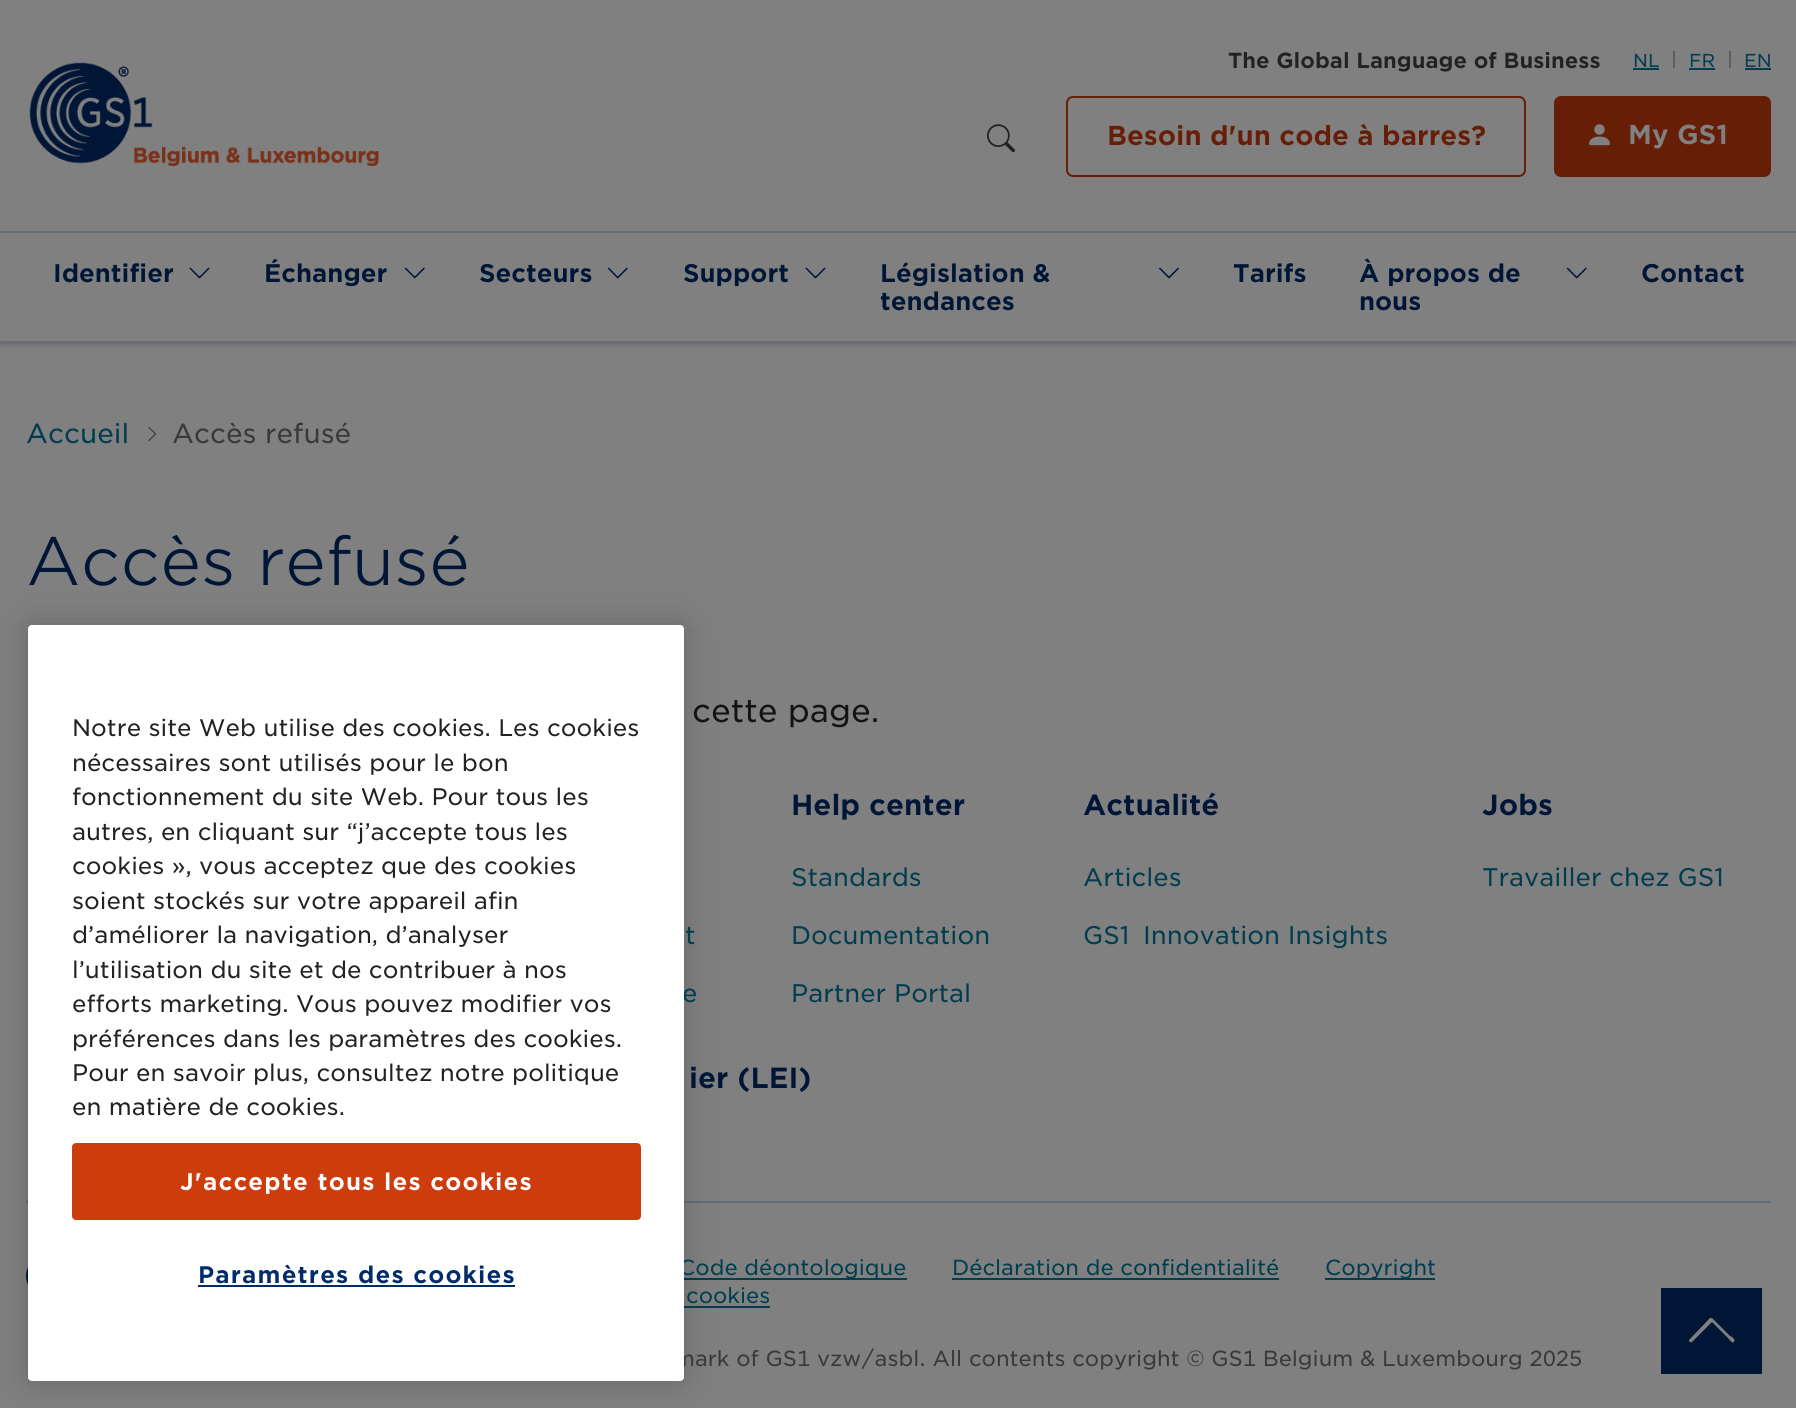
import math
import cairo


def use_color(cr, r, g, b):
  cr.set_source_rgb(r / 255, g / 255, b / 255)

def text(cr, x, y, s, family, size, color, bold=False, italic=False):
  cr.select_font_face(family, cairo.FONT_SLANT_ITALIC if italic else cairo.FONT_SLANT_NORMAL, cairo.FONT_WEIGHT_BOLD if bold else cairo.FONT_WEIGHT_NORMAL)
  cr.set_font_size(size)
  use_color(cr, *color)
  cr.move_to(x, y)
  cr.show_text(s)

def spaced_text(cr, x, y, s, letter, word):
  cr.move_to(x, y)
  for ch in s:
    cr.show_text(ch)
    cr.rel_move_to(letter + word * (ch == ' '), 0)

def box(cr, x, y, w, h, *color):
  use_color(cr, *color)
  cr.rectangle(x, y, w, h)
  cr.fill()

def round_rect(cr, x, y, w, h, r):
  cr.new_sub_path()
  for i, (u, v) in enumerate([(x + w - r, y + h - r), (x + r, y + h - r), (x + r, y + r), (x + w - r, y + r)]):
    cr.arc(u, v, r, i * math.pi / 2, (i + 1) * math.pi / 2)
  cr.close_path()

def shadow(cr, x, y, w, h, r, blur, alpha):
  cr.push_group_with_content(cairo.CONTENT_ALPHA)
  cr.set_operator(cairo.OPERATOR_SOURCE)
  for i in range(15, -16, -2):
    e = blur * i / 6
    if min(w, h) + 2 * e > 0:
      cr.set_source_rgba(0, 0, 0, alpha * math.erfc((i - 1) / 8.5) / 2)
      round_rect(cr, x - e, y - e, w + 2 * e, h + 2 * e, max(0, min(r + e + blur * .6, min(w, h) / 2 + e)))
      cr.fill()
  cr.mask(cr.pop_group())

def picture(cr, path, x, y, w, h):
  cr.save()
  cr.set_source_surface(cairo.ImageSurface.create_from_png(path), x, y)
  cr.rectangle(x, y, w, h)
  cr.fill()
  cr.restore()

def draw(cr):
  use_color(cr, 128, 128, 128)
  cr.paint()
  cr.save()
  cr.rectangle(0, 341, 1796, 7)
  cr.clip()
  use_color(cr, 0, 22, 54)
  shadow(cr, 0, 2, 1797, 343, 0, 2.5, 0.2)
  cr.restore()
  picture(cr, "img_01.png", 29, 62, 350, 104)
  box(cr, 1673, 51, 2, 17, 94, 94, 96)
  box(cr, 1633, 68, 26, 2, 0, 61, 79)
  box(cr, 1729, 51, 2, 17, 94, 94, 96)
  box(cr, 1689, 68, 26, 2, 0, 61, 79)
  box(cr, 1745, 68, 26, 2, 0, 61, 79)
  picture(cr, "img_02.png", 987, 124, 28, 28)
  round_rect(cr, 1067, 97, 458, 79, 6)
  use_color(cr, 103, 30, 7)
  cr.stroke()
  round_rect(cr, 1554, 96, 217, 81, 7)
  cr.fill()
  picture(cr, "img_03.png", 1589, 124, 21, 22)
  box(cr, 0, 231, 1796, 2, 98, 108, 119)
  picture(cr, "img_04.png", 189, 267, 21, 12)
  picture(cr, "img_05.png", 404, 267, 21, 12)
  picture(cr, "img_05.png", 607, 267, 21, 12)
  picture(cr, "img_04.png", 805, 267, 21, 12)
  picture(cr, "img_06.png", 1159, 267, 20, 12)
  picture(cr, "img_05.png", 1566, 267, 21, 12)
  picture(cr, "img_07.png", 148, 427, 8, 14)
  box(cr, 26, 1201, 1745, 2, 98, 108, 119)
  use_color(cr, 0, 22, 54)
  cr.arc(47, 1276, 21, 0, 2 * math.pi)
  cr.fill()
  box(cr, 679, 1278, 228, 2, 0, 61, 79)
  box(cr, 952, 1278, 327, 2, 0, 61, 79)
  box(cr, 1325, 1278, 110, 2, 0, 61, 79)
  box(cr, 684, 1306, 86, 2, 0, 61, 79)
  use_color(cr, 0, 0, 0)
  shadow(cr, 28, 625, 656, 756, 4, 16, 0.2)
  box(cr, 1661, 1288, 101, 86, 0, 22, 54)
  use_color(cr, 128, 128, 128)
  cr.new_path()
  cr.move_to(1710, 1318)
  cr.line_to(1712, 1318)
  cr.line_to(1730, 1336)
  cr.curve_to(1731, 1336, 1736, 1339, 1734, 1342)
  cr.curve_to(1732, 1344, 1729, 1339, 1728, 1338)
  cr.line_to(1712, 1322)
  cr.line_to(1692, 1342)
  cr.curve_to(1691, 1343, 1689, 1342, 1689, 1340)
  cr.close_path()
  cr.fill()
  text(cr, 1228, 68, "The Global Language of Business", "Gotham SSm", 21, (33, 34, 35), bold=True)
  text(cr, 1633, 67, "NL", "Gotham SSm", 18, (0, 61, 79))
  text(cr, 1689, 67, "FR", "Gotham SSm", 18, (0, 61, 79))
  text(cr, 1744, 67, "EN", "Gotham SSm", 18, (0, 61, 79))
  text(cr, 1107, 145, "Besoin d'un code à barres?", "Gotham SSm", 26.25, (103, 30, 7), bold=True)
  text(cr, 1628, 144, "My GS1", "Gotham SSm", 26.25, (128, 128, 128), bold=True)
  text(cr, 53, 282, "Identifier", "Gotham SSm", 24.5, (0, 22, 54), bold=True)
  text(cr, 264, 282, "Échanger", "Gotham SSm", 24.5, (0, 22, 54), bold=True)
  text(cr, 479, 282, "Secteurs", "Gotham SSm", 24.5, (0, 22, 54), bold=True)
  text(cr, 683, 282, "Support", "Gotham SSm", 24.5, (0, 22, 54), bold=True)
  text(cr, 880, 282, "Législation &", "Gotham SSm", 24.5, (0, 22, 54), bold=True)
  text(cr, 880, 310, "tendances", "Gotham SSm", 24.5, (0, 22, 54), bold=True)
  text(cr, 1233, 282, "Tarifs", "Gotham SSm", 24.5, (0, 22, 54), bold=True)
  text(cr, 1359, 282, "À propos de", "Gotham SSm", 24.5, (0, 22, 54), bold=True)
  text(cr, 1359, 310, "nous", "Gotham SSm", 24.5, (0, 22, 54), bold=True)
  text(cr, 1641, 282, "Contact", "Gotham SSm", 24.5, (0, 22, 54), bold=True)
  text(cr, 26, 443, "Accueil", "Gotham SSm", 26.5, (0, 61, 79))
  text(cr, 172, 443, "Accès refusé", "Gotham SSm", 26.5, (57, 57, 58))
  text(cr, 26, 585, "Accès refusé", "Gotham SSm Light", 65.75, (0, 22, 54))
  text(cr, 692, 722, "cette page.", "Gotham SSm", 31.5, (19, 19, 19))
  text(cr, 791, 815, "Help center", "Gotham SSm", 28, (0, 22, 54), bold=True)
  text(cr, 791, 886, "Standards", "Gotham SSm", 24.5, (0, 61, 79))
  text(cr, 791, 944, "Documentation", "Gotham SSm", 24.5, (0, 61, 79))
  text(cr, 791, 1002, "Partner Portal", "Gotham SSm", 24.5, (0, 61, 79))
  text(cr, 1083, 815, "Actualité", "Gotham SSm", 28, (0, 22, 54), bold=True)
  text(cr, 1083, 886, "Articles", "Gotham SSm", 24.5, (0, 61, 79))
  text(cr, 1083, 944, "GS1", "Gotham SSm", 24.5, (0, 61, 79))
  text(cr, 1143, 944, "Innovation Insights", "Gotham SSm", 24.5, (0, 61, 79))
  text(cr, 1482, 815, "Jobs", "Gotham SSm", 28, (0, 22, 54), bold=True)
  text(cr, 1482, 886, "Travailler chez GS1", "Gotham SSm", 24.5, (0, 61, 79))
  text(cr, 685, 944, "t", "Gotham SSm", 24.5, (0, 61, 79))
  text(cr, 682, 1002, "e", "Gotham SSm", 24.5, (0, 61, 79))
  text(cr, 689, 1088, "ier (LEI)", "Gotham SSm", 28, (0, 22, 54), bold=True)
  text(cr, 679, 1275, "Code déontologique", "Gotham SSm", 21, (0, 61, 79))
  text(cr, 952, 1275, "Déclaration de confidentialité", "Gotham SSm", 21, (0, 61, 79))
  text(cr, 1325, 1275, "Copyright", "Gotham SSm", 21, (0, 61, 79))
  text(cr, 686, 1303, "cookies", "Gotham SSm", 21, (0, 61, 79))
  text(cr, 674, 1366, "mark of GS1 vzw/asbl. All contents copyright © GS1 Belgium & Luxembourg 2025", "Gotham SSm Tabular", 21, (57, 57, 58))
  use_color(cr, 255, 255, 255)
  round_rect(cr, 28, 625, 656, 756, 4)
  cr.fill()
  text(cr, 72, 736, "Notre site Web utilise des cookies. Les cookies", "Gotham SSm", 23, (33, 34, 35))
  text(cr, 72, 771, "nécessaires sont utilisés pour le bon", "Gotham SSm", 23, (33, 34, 35))
  text(cr, 72, 805, "fonctionnement du site Web. Pour tous les", "Gotham SSm", 23, (33, 34, 35))
  text(cr, 72, 840, "autres, en cliquant sur “j’accepte tous les", "Gotham SSm", 23, (33, 34, 35))
  text(cr, 72, 874, "cookies », vous acceptez que des cookies", "Gotham SSm", 23, (33, 34, 35))
  text(cr, 72, 909, "soient stockés sur votre appareil afin", "Gotham SSm", 23, (33, 34, 35))
  text(cr, 72, 943, "d’améliorer la navigation, d’analyser", "Gotham SSm", 23, (33, 34, 35))
  text(cr, 72, 978, "l’utilisation du site et de contribuer à nos", "Gotham SSm", 23, (33, 34, 35))
  text(cr, 72, 1012, "efforts marketing. Vous pouvez modifier vos", "Gotham SSm", 23, (33, 34, 35))
  text(cr, 72, 1047, "préférences dans les paramètres des cookies.", "Gotham SSm", 23, (33, 34, 35))
  text(cr, 72, 1081, "Pour en savoir plus, consultez notre politique", "Gotham SSm", 23, (33, 34, 35))
  text(cr, 72, 1115, "en matière de cookies.", "Gotham SSm", 23, (33, 34, 35))
  use_color(cr, 205, 60, 13)
  round_rect(cr, 73, 1144, 567, 75, 3)
  cr.fill_preserve()
  cr.stroke()
  cr.select_font_face("Gotham SSm", cairo.FONT_SLANT_NORMAL, cairo.FONT_WEIGHT_BOLD)
  use_color(cr, 255, 255, 255)
  spaced_text(cr, 180, 1190, "J'accepte tous les cookies", 1.15, 0)
  use_color(cr, 0, 44, 108)
  spaced_text(cr, 198, 1283, "Paramètres des cookies", 1.15, 0)
  box(cr, 198, 1285, 317, 2, 0, 44, 108)


surface = cairo.ImageSurface(cairo.FORMAT_RGB24, 1796, 1408)
cr = cairo.Context(surface)
options = cairo.FontOptions()
options.set_hint_metrics(cairo.HINT_METRICS_OFF)
options.set_hint_style(cairo.HINT_STYLE_NONE)
cr.set_font_options(options)
cr.set_miter_limit(4)
draw(cr)
surface.write_to_png("out.png")
